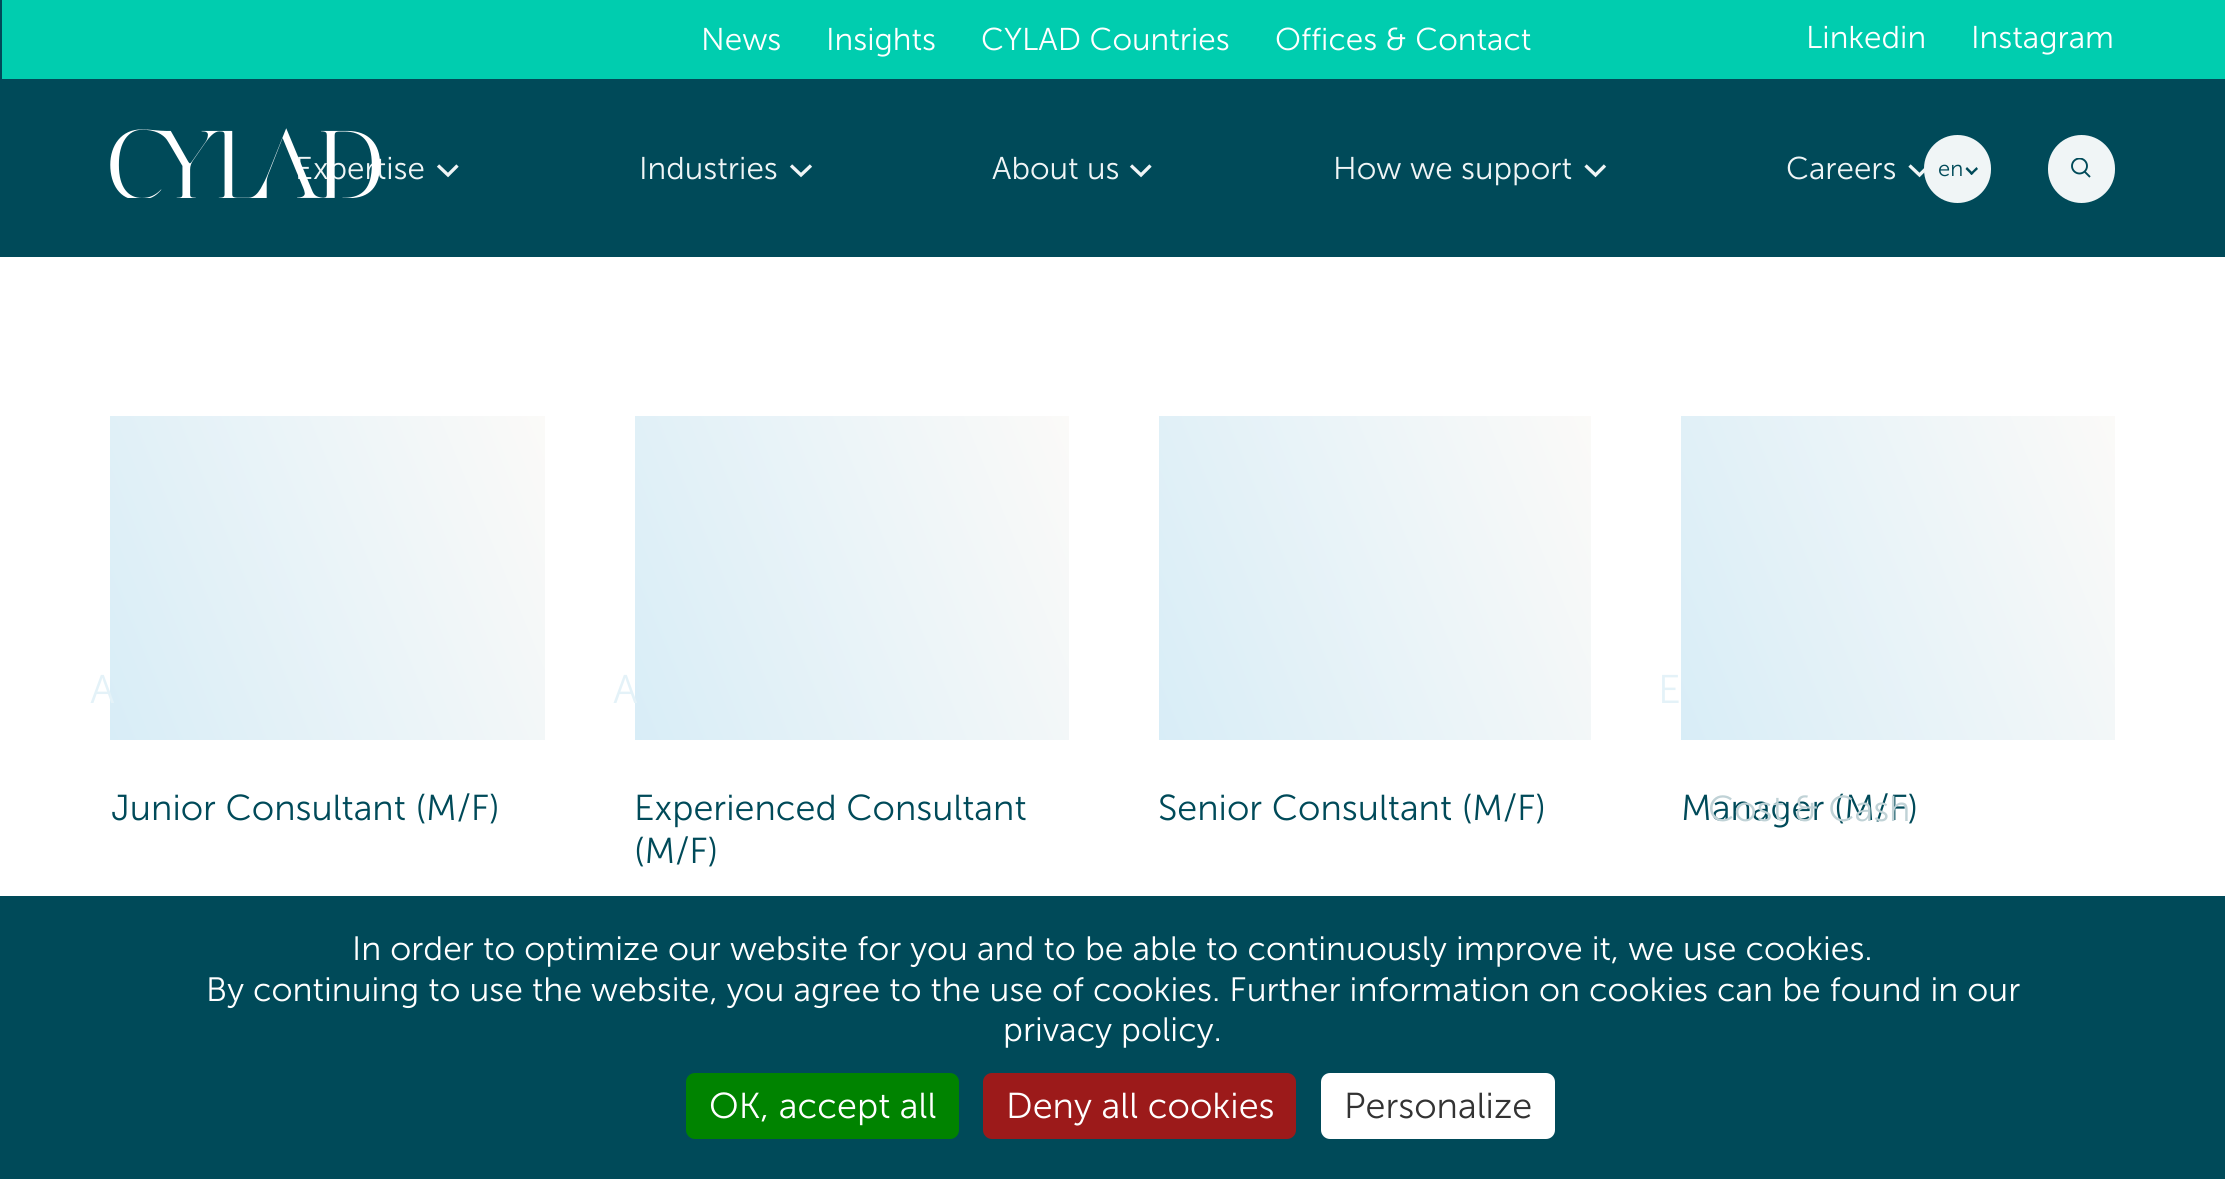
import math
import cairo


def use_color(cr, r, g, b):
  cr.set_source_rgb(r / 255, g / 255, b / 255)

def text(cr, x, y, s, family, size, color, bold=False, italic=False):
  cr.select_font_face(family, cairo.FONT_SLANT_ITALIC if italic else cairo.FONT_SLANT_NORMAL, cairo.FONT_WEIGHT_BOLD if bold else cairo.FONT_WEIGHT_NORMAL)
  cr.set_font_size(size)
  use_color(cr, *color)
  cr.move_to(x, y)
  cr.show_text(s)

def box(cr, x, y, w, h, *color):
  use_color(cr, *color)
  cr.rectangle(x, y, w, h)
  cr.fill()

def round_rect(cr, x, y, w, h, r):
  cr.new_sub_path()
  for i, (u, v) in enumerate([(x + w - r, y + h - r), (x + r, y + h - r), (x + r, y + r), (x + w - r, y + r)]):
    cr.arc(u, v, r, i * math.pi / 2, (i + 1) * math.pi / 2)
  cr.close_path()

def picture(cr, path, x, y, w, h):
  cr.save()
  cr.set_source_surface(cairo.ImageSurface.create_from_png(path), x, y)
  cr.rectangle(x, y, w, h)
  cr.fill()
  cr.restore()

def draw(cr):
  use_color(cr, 255, 255, 255)
  cr.paint()
  box(cr, 0, 0, 2225, 257, 0, 74, 89)
  box(cr, 2, 0, 2223, 79, 0, 205, 175)
  cr.new_path()
  cr.move_to(791, 165.5)
  cr.line_to(801, 175)
  cr.line_to(811, 165.5)
  use_color(cr, 240, 245, 246)
  cr.set_line_width(3.3)
  cr.stroke()
  cr.new_path()
  cr.move_to(438, 165.5)
  cr.line_to(448, 175)
  cr.line_to(457.5, 165.5)
  cr.stroke()
  cr.new_path()
  cr.move_to(1131, 165.5)
  cr.line_to(1141, 175)
  cr.line_to(1150.5, 165.5)
  cr.stroke()
  cr.new_path()
  cr.move_to(1585.5, 165.5)
  cr.line_to(1595.5, 175)
  cr.line_to(1605, 165.5)
  cr.stroke()
  cr.new_path()
  cr.move_to(1909.5, 165.5)
  cr.line_to(1919.5, 175)
  cr.line_to(1929, 165.5)
  cr.stroke()
  round_rect(cr, 1924, 135, 67, 68, 33.5)
  cr.fill()
  use_color(cr, 0, 74, 89)
  cr.new_path()
  cr.move_to(1976.5, 167)
  cr.line_to(1978, 169)
  cr.line_to(1971.5, 175)
  cr.line_to(1970, 173.5)
  cr.close_path()
  cr.fill()
  cr.new_path()
  cr.move_to(1967, 167)
  cr.line_to(1973.5, 173.5)
  cr.line_to(1971.5, 175)
  cr.line_to(1965.5, 169)
  cr.close_path()
  cr.fill()
  use_color(cr, 240, 245, 246)
  round_rect(cr, 2048, 135, 67, 68, 33.5)
  cr.fill()
  cr.new_path()
  cr.move_to(2084.5, 171.5)
  cr.line_to(2090, 177)
  use_color(cr, 0, 74, 89)
  cr.set_line_width(1.9)
  cr.stroke()
  cr.save()
  cr.rectangle(2070, 158, 23, 22)
  cr.clip()
  cr.arc(2079.5, 166, 7.5, 0, 2 * math.pi)
  cr.stroke()
  cr.restore()
  gradient = cairo.LinearGradient(85, 679, 570, 478)
  gradient.add_color_stop_rgba(0, 0.847, 0.929, 0.969, 1)
  gradient.add_color_stop_rgba(1, 0.984, 0.98, 0.973, 1)
  cr.set_source(gradient)
  cr.rectangle(110, 416, 435, 324)
  cr.fill()
  gradient = cairo.LinearGradient(609, 679, 1094, 478)
  gradient.add_color_stop_rgba(0, 0.847, 0.929, 0.969, 1)
  gradient.add_color_stop_rgba(1, 0.984, 0.98, 0.973, 1)
  cr.set_source(gradient)
  cr.rectangle(635, 416, 434, 324)
  cr.fill()
  gradient = cairo.LinearGradient(1133, 678, 1616, 478)
  gradient.add_color_stop_rgba(0, 0.847, 0.929, 0.969, 1)
  gradient.add_color_stop_rgba(1, 0.984, 0.98, 0.973, 1)
  cr.set_source(gradient)
  cr.rectangle(1159, 416, 432, 324)
  cr.fill()
  gradient = cairo.LinearGradient(1655, 679, 2141, 478)
  gradient.add_color_stop_rgba(0, 0.847, 0.929, 0.969, 1)
  gradient.add_color_stop_rgba(1, 0.984, 0.98, 0.973, 1)
  cr.set_source(gradient)
  cr.rectangle(1681, 416, 434, 324)
  cr.fill()
  box(cr, 0, 896, 2225, 283, 0, 74, 89)
  use_color(cr, 0, 131, 0)
  round_rect(cr, 686, 1073, 273, 66, 9)
  cr.fill()
  use_color(cr, 156, 26, 26)
  round_rect(cr, 983, 1073, 313, 66, 9)
  cr.fill()
  use_color(cr, 255, 255, 255)
  round_rect(cr, 1321, 1073, 234, 66, 9)
  cr.fill()
  text(cr, 701, 50, "News", "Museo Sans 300 Light", 31.5, (255, 255, 255))
  text(cr, 826, 50, "Insights", "Museo Sans 300 Light", 31.5, (255, 255, 255))
  text(cr, 981, 50, "CYLAD Countries", "Museo Sans 300 Light", 31.5, (255, 255, 255))
  text(cr, 1275, 50, "Offices & Contact", "Museo Sans 300 Light", 31.5, (255, 255, 255))
  text(cr, 1806, 48, "Linkedin", "Museo Sans 300 Light", 31.5, (255, 255, 255))
  text(cr, 1971, 48, "Instagram", "Museo Sans 300 Light", 31.5, (255, 255, 255))
  text(cr, 639, 179, "Industries", "Museo Sans 300 Light", 31.5, (240, 245, 246))
  text(cr, 90, 703, "A", "Museo Sans 300 Light", 40, (228, 242, 248))
  text(cr, 613, 703, "A", "Museo Sans 300 Light", 40, (228, 242, 248))
  text(cr, 1658, 703, "E", "Museo Sans 300 Light", 40, (228, 242, 248))
  text(cr, 295, 179, "Expertise", "Museo Sans 300 Light", 31.5, (240, 245, 246))
  picture(cr, "img_01.png", 110, 128, 270, 70)
  text(cr, 992, 179, "About us", "Museo Sans 300 Light", 31.5, (240, 245, 246))
  text(cr, 1333, 179, "How we support", "Museo Sans 300 Light", 31.5, (240, 245, 246))
  text(cr, 1786, 179, "Careers", "Museo Sans 300 Light", 31.5, (240, 245, 246))
  text(cr, 1938, 176, "en", "Museo Sans 300 Light", 22, (0, 74, 89))
  text(cr, 111, 820, "Junior Consultant (M/F)", "Museo Sans 300 Light", 36, (0, 74, 89))
  text(cr, 634, 820, "Experienced Consultant", "Museo Sans 300 Light", 36, (0, 74, 89))
  text(cr, 634, 863, "(M/F)", "Museo Sans 300 Light", 36, (0, 74, 89))
  text(cr, 1158, 820, "Senior Consultant (M/F)", "Museo Sans 300 Light", 36, (0, 74, 89))
  text(cr, 1681, 820, "Manager (M/F)", "Museo Sans 300 Light", 36, (0, 74, 89))
  text(cr, 1708, 821, "Cost & Cash", "Museo Sans 300 Light", 36, (192, 210, 214))
  text(cr, 352, 960, "In order to optimize our website for you and to be able to continuously improve it, we use cookies.", "Museo Sans 300 Light", 33.75, (255, 255, 255))
  text(cr, 206, 1001, "By continuing to use the website, you agree to the use of cookies. Further information on cookies can be found in our", "Museo Sans 300 Light", 33.75, (255, 255, 255))
  text(cr, 1003, 1041, "privacy policy.", "Museo Sans 300 Light", 33.75, (255, 255, 255))
  text(cr, 709, 1118, "OK, accept all", "Museo Sans 300 Light", 36, (255, 255, 255))
  text(cr, 1006, 1118, "Deny all cookies", "Museo Sans 300 Light", 36, (255, 255, 255))
  text(cr, 1344, 1118, "Personalize", "Museo Sans 300 Light", 36, (51, 51, 51))


surface = cairo.ImageSurface(cairo.FORMAT_RGB24, 2225, 1179)
cr = cairo.Context(surface)
options = cairo.FontOptions()
options.set_hint_metrics(cairo.HINT_METRICS_OFF)
options.set_hint_style(cairo.HINT_STYLE_NONE)
cr.set_font_options(options)
cr.set_miter_limit(4)
draw(cr)
surface.write_to_png("out.png")
